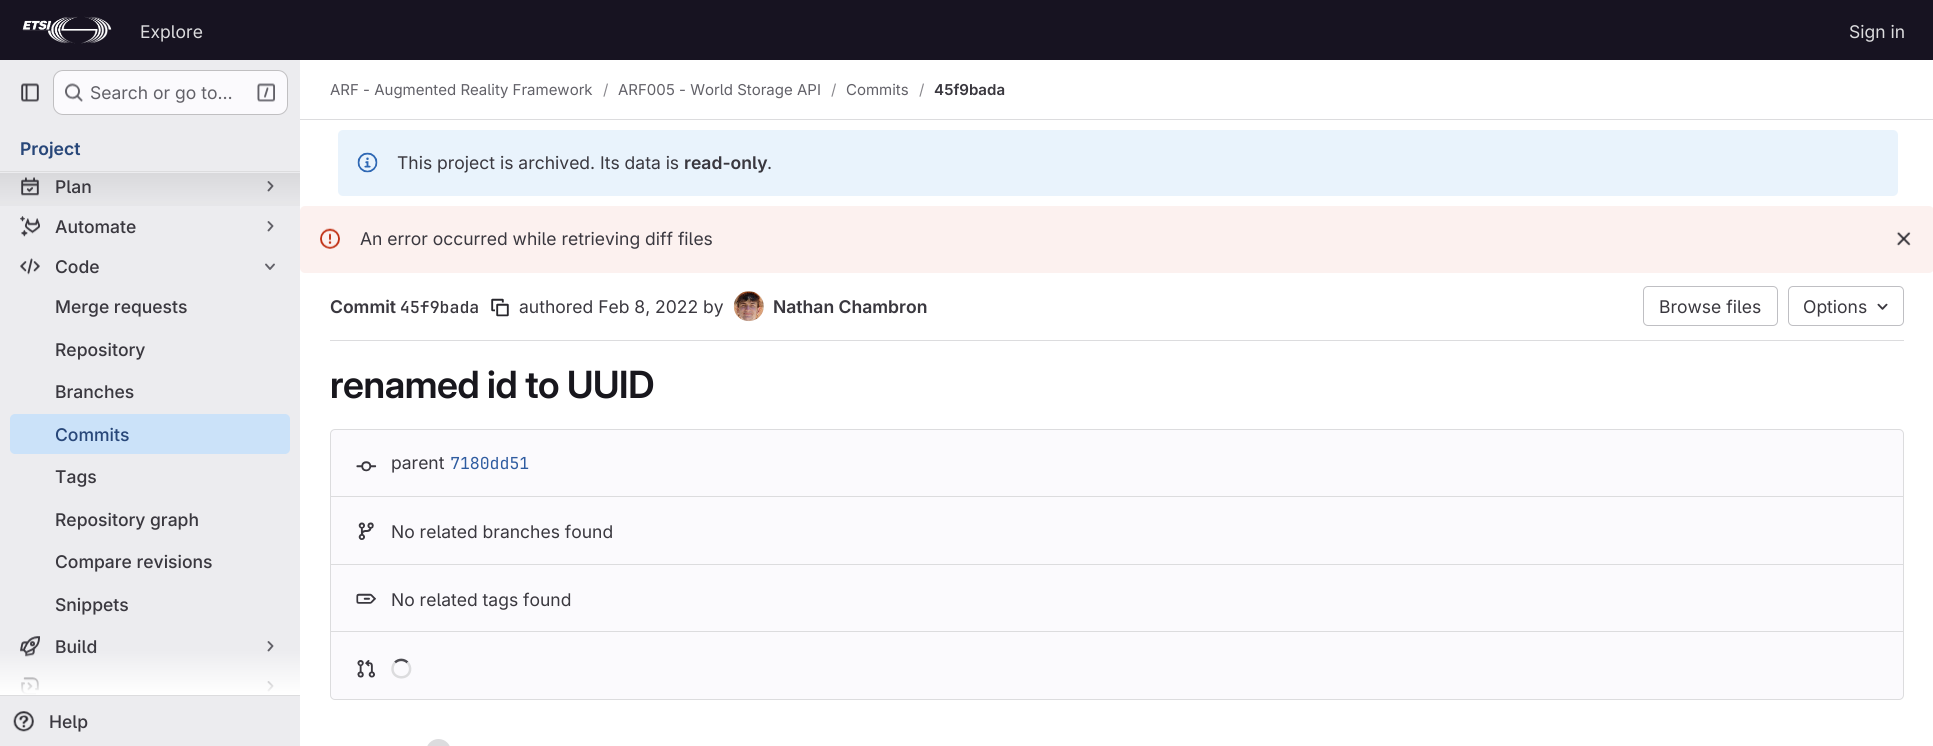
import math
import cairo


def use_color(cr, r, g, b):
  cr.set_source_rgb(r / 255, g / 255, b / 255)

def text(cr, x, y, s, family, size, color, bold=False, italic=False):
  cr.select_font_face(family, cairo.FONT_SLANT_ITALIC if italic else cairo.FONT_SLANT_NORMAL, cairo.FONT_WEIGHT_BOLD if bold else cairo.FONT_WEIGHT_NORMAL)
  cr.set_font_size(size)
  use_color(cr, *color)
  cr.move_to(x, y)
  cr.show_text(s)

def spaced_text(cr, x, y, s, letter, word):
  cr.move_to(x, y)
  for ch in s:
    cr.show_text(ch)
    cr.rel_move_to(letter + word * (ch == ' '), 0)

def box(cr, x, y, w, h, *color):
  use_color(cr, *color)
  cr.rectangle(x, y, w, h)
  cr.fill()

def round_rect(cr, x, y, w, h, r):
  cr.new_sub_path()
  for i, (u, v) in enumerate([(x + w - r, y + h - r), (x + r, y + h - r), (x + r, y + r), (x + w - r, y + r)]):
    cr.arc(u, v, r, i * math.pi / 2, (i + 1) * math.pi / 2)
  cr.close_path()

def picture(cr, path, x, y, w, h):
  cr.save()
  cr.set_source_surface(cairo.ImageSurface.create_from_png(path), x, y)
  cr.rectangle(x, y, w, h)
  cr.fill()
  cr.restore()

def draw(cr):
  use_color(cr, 255, 255, 255)
  cr.paint()
  box(cr, 0, 0, 1933, 60, 23, 19, 33)
  picture(cr, "img_01.png", 22, 16, 90, 28)
  box(cr, 0, 60, 300, 686, 236, 236, 239)
  picture(cr, "img_02.png", 21, 83, 18, 19)
  use_color(cr, 251, 250, 253)
  round_rect(cr, 53, 70, 235, 45, 10)
  cr.fill()
  round_rect(cr, 53.5, 70.5, 234, 44, 9.5)
  cr.set_source_rgba(0.02, 0.02, 0.024, 0.24)
  cr.set_line_width(1)
  cr.stroke()
  picture(cr, "img_03.png", 65, 83, 18, 19)
  picture(cr, "img_04.png", 257, 83, 18, 19)
  box(cr, 0, 171, 300, 1, 220, 220, 222)
  box(cr, 0, 695, 300, 1, 220, 220, 222)
  picture(cr, "img_05.png", 21, 177, 18, 19)
  cr.new_path()
  cr.move_to(268.5, 182)
  cr.line_to(272.5, 186)
  cr.line_to(268.5, 190.5)
  use_color(cr, 98, 97, 104)
  cr.set_line_width(1.9)
  cr.set_line_cap(cairo.LINE_CAP_ROUND)
  cr.set_line_join(cairo.LINE_JOIN_ROUND)
  cr.stroke()
  gradient = cairo.LinearGradient(150, 173, 150, 218)
  gradient.add_color_stop_rgba(0, 0.02, 0.02, 0.024, 0.08)
  gradient.add_color_stop_rgba(1, 0.02, 0.02, 0.024, 0)
  cr.set_source(gradient)
  cr.rectangle(0, 173, 300, 33)
  cr.fill()
  picture(cr, "img_06.png", 20, 216, 20, 21)
  cr.new_path()
  cr.move_to(268.5, 222)
  cr.line_to(272.5, 226)
  cr.line_to(268.5, 230.5)
  use_color(cr, 98, 97, 104)
  cr.stroke()
  picture(cr, "img_07.png", 20, 258, 20, 17)
  cr.new_path()
  cr.move_to(274, 264.5)
  cr.line_to(270, 269)
  cr.line_to(266, 264.5)
  cr.stroke()
  use_color(cr, 203, 226, 249)
  round_rect(cr, 10, 414, 280, 40, 5)
  cr.fill()
  picture(cr, "img_08.png", 20, 636, 20, 21)
  cr.new_path()
  cr.move_to(268.5, 642)
  cr.line_to(272.5, 646)
  cr.line_to(268.5, 650.5)
  use_color(cr, 98, 97, 104)
  cr.stroke()
  picture(cr, "img_09.png", 21, 677, 18, 18)
  cr.new_path()
  cr.move_to(268.5, 682)
  cr.line_to(272.5, 686)
  cr.line_to(268.5, 690.5)
  cr.stroke()
  picture(cr, "img_10.png", 13, 711, 21, 21)
  box(cr, 300, 119, 1633, 1, 220, 220, 222)
  use_color(cr, 233, 243, 252)
  round_rect(cr, 338, 130, 1560, 66, 5)
  cr.fill()
  picture(cr, "img_11.png", 357, 152, 21, 21)
  use_color(cr, 252, 241, 239)
  round_rect(cr, 300, 206, 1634, 67, 5)
  cr.fill()
  picture(cr, "img_12.png", 320, 228, 20, 21)
  picture(cr, "img_13.png", 1896, 231, 15, 15)
  picture(cr, "img_14.png", 491, 298, 18, 19)
  cr.arc(749, 306, 14.5, 0, 2 * math.pi)
  use_color(cr, 232, 231, 233)
  cr.set_line_width(1)
  cr.set_line_cap(cairo.LINE_CAP_BUTT)
  cr.set_line_join(cairo.LINE_JOIN_MITER)
  cr.stroke()
  picture(cr, "img_15.png", 733, 291, 31, 31)
  round_rect(cr, 1643.5, 286.5, 134, 39, 4.5)
  use_color(cr, 191, 191, 195)
  cr.stroke()
  round_rect(cr, 1788.5, 286.5, 115, 39, 4.5)
  cr.stroke()
  picture(cr, "img_16.png", 1877, 303, 11, 7)
  box(cr, 330, 340, 1574, 1, 220, 220, 222)
  use_color(cr, 251, 250, 253)
  round_rect(cr, 330.5, 429.5, 1573, 270, 4.5)
  cr.fill_preserve()
  use_color(cr, 220, 220, 222)
  cr.stroke()
  picture(cr, "img_17.png", 356, 461, 21, 11)
  box(cr, 331, 496, 1572, 1, 220, 220, 222)
  picture(cr, "img_18.png", 358, 522, 16, 18)
  box(cr, 331, 564, 1572, 1, 220, 220, 222)
  picture(cr, "img_19.png", 356, 593, 20, 11)
  box(cr, 331, 631, 1572, 1, 220, 220, 222)
  picture(cr, "img_20.png", 357, 660, 18, 18)
  cr.new_path()
  cr.move_to(395, 662.5)
  cr.curve_to(398.5, 659, 404, 659, 407.5, 662.5)
  use_color(cr, 76, 75, 81)
  cr.set_line_width(2.5)
  cr.stroke()
  cr.new_path()
  cr.move_to(407.5, 662.5)
  cr.curve_to(409.5, 664.5, 410.5, 667.5, 410, 670.5)
  cr.curve_to(408, 680.5, 392.5, 679, 392.5, 669)
  cr.curve_to(392.5, 666.5, 393.5, 664, 395, 662.5)
  use_color(cr, 220, 220, 222)
  cr.stroke()
  round_rect(cr, 426, 739, 25, 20, 12.5)
  cr.fill()
  text(cr, 140, 38, "Explore", "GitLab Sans", 17.5, (220, 220, 222))
  text(cr, 1849, 38, "Sign in", "GitLab Sans", 17.5, (220, 220, 222))
  text(cr, 90, 99, "Search or go to…", "GitLab Sans", 17.5, (98, 97, 104))
  text(cr, 20, 155, "Project", "GitLab Sans SemiBold", 17.5, (40, 71, 121))
  text(cr, 55, 193, "Plan", "GitLab Sans Medium", 17.5, (58, 56, 63))
  text(cr, 55, 233, "Automate", "GitLab Sans Medium", 17.5, (58, 56, 63))
  text(cr, 55, 273, "Code", "GitLab Sans Medium", 17.5, (58, 56, 63))
  text(cr, 55, 313, "Merge requests", "GitLab Sans Medium", 17.5, (58, 56, 63))
  text(cr, 55, 356, "Repository", "GitLab Sans Medium", 17.5, (58, 56, 63))
  text(cr, 55, 398, "Branches", "GitLab Sans Medium", 17.5, (58, 56, 63))
  text(cr, 55, 441, "Commits", "GitLab Sans Medium", 17.5, (40, 71, 121))
  text(cr, 55, 483, "Tags", "GitLab Sans Medium", 17.5, (58, 56, 63))
  text(cr, 55, 526, "Repository graph", "GitLab Sans Medium", 17.5, (58, 56, 63))
  text(cr, 55, 568, "Compare revisions", "GitLab Sans Medium", 17.5, (58, 56, 63))
  text(cr, 55, 611, "Snippets", "GitLab Sans Medium", 17.5, (58, 56, 63))
  text(cr, 55, 653, "Build", "GitLab Sans Medium", 17.5, (58, 56, 63))
  gradient = cairo.LinearGradient(150, 650, 150, 695)
  gradient.add_color_stop_rgba(0, 1, 1, 1, 0)
  gradient.add_color_stop_rgba(1, 1, 1, 1, 1)
  cr.set_source(gradient)
  cr.rectangle(0, 651, 300, 44)
  cr.fill()
  text(cr, 49, 728, "Help", "GitLab Sans Medium", 17.5, (58, 56, 63))
  text(cr, 330, 95, "ARF - Augmented Reality Framework", "GitLab Sans", 15, (98, 97, 104))
  text(cr, 603, 95, "/", "GitLab Sans", 15, (137, 136, 141))
  text(cr, 618, 95, "ARF005 - World Storage API", "GitLab Sans", 15, (98, 97, 104))
  text(cr, 831, 95, "/", "GitLab Sans", 15, (137, 136, 141))
  text(cr, 846, 95, "Commits", "GitLab Sans", 15, (98, 97, 104))
  text(cr, 919, 95, "/", "GitLab Sans", 15, (137, 136, 141))
  text(cr, 934, 95, "45f9bada", "GitLab Sans SemiBold", 15, (58, 56, 63))
  text(cr, 397, 169, "This project is archived. Its data is", "GitLab Sans", 17.5, (58, 56, 63))
  text(cr, 684, 169, "read-only", "GitLab Sans SemiBold", 17.5, (58, 56, 63))
  text(cr, 767, 169, ".", "GitLab Sans", 17.5, (58, 56, 63))
  text(cr, 360, 245, "An error occurred while retrieving diff files", "GitLab Sans", 17.5, (58, 56, 63))
  text(cr, 330, 313, "Commit", "GitLab Sans SemiBold", 17.5, (58, 56, 63))
  text(cr, 400, 313, "45f9bada", "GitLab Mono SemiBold", 16.5, (58, 56, 63))
  text(cr, 519, 313, "authored Feb 8, 2022 by", "GitLab Sans", 17.5, (58, 56, 63))
  text(cr, 773, 313, "Nathan Chambron", "GitLab Sans SemiBold", 17.5, (58, 56, 63))
  text(cr, 1659, 313, "Browse files", "GitLab Sans", 17.5, (58, 56, 63))
  text(cr, 1803, 313, "Options", "GitLab Sans", 17.5, (58, 56, 63))
  cr.select_font_face("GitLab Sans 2 SemiBold")
  cr.set_font_size(37.5)
  use_color(cr, 24, 23, 29)
  spaced_text(cr, 330, 398, "renamed id to UUID", -0.4, 0)
  text(cr, 391, 469, "parent", "GitLab Sans", 17.5, (58, 56, 63))
  text(cr, 450, 469, "7180dd51", "GitLab Mono", 16.5, (47, 92, 160))
  text(cr, 391, 538, "No related branches found", "GitLab Sans", 17.5, (58, 56, 63))
  text(cr, 391, 606, "No related tags found", "GitLab Sans", 17.5, (58, 56, 63))


surface = cairo.ImageSurface(cairo.FORMAT_RGB24, 1933, 746)
cr = cairo.Context(surface)
options = cairo.FontOptions()
options.set_hint_metrics(cairo.HINT_METRICS_OFF)
options.set_hint_style(cairo.HINT_STYLE_NONE)
cr.set_font_options(options)
cr.set_miter_limit(4)
draw(cr)
surface.write_to_png("out.png")
